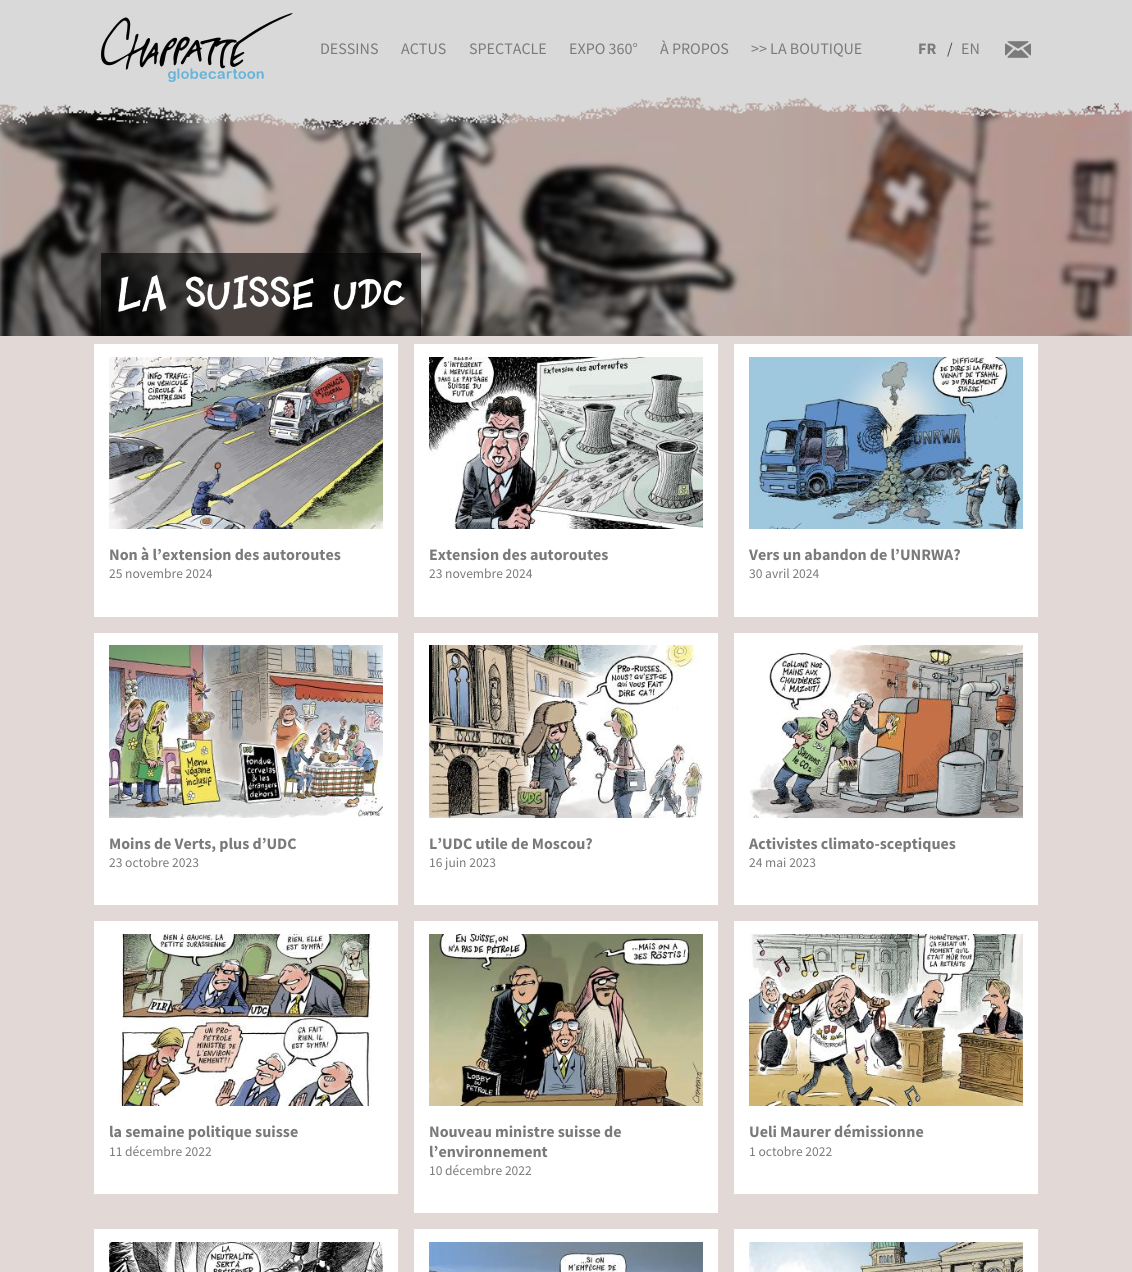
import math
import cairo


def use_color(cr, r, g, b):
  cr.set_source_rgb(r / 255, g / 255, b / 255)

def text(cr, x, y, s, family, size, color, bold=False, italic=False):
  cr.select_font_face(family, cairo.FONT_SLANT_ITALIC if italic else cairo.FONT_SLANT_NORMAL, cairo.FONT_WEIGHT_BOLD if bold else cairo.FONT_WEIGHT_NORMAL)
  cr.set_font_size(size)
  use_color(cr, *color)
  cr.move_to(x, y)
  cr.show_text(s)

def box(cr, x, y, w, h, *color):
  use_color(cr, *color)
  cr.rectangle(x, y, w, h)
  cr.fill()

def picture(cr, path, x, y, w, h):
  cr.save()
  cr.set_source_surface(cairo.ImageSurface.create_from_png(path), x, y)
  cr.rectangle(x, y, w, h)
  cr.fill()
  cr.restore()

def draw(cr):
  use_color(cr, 226, 217, 214)
  cr.paint()
  box(cr, 0, 0, 1132, 96, 217, 217, 217)
  picture(cr, "img_01.png", 101, 13, 192, 69)
  picture(cr, "img_02.png", 1005, 41, 26, 17)
  box(cr, 0, 104, 1132, 232, 181, 174, 171)
  picture(cr, "img_04.png", 0, 96, 1132, 240)
  picture(cr, "img_03.png", 0, 96, 1132, 35)
  cr.set_source_rgba(0, 0, 0, 0.6)
  cr.rectangle(101, 253, 320, 83)
  cr.fill()
  box(cr, 94, 344, 304, 273, 255, 255, 255)
  picture(cr, "img_05.png", 109, 357, 274, 172)
  box(cr, 414, 344, 304, 273, 255, 255, 255)
  picture(cr, "img_06.png", 429, 357, 274, 172)
  box(cr, 734, 344, 304, 273, 255, 255, 255)
  picture(cr, "img_07.png", 749, 357, 274, 172)
  box(cr, 94, 633, 304, 272, 255, 255, 255)
  picture(cr, "img_08.png", 109, 645, 274, 173)
  box(cr, 414, 633, 304, 272, 255, 255, 255)
  picture(cr, "img_09.png", 429, 645, 274, 173)
  box(cr, 734, 633, 304, 272, 255, 255, 255)
  picture(cr, "img_10.png", 749, 645, 274, 173)
  box(cr, 94, 921, 304, 273, 255, 255, 255)
  picture(cr, "img_11.png", 117, 934, 255, 172)
  box(cr, 414, 921, 304, 292, 255, 255, 255)
  picture(cr, "img_12.png", 429, 934, 274, 172)
  box(cr, 734, 921, 304, 273, 255, 255, 255)
  picture(cr, "img_13.png", 749, 934, 274, 172)
  box(cr, 94, 1229, 304, 43, 255, 255, 255)
  picture(cr, "img_14.png", 109, 1242, 274, 30)
  box(cr, 414, 1229, 304, 43, 255, 255, 255)
  picture(cr, "img_15.png", 429, 1242, 274, 30)
  box(cr, 734, 1229, 304, 43, 255, 255, 255)
  picture(cr, "img_16.png", 749, 1242, 274, 30)
  text(cr, 320, 54, "DESSINS", "Source Sans Pro", 16, (122, 122, 122))
  text(cr, 401, 54, "ACTUS", "Source Sans Pro", 16, (122, 122, 122))
  text(cr, 469, 54, "SPECTACLE", "Source Sans Pro", 16, (122, 122, 122))
  text(cr, 569, 54, "EXPO 360°", "Source Sans Pro", 16, (122, 122, 122))
  text(cr, 660, 54, "À PROPOS", "Source Sans Pro", 16, (122, 122, 122))
  text(cr, 751, 54, ">> LA BOUTIQUE", "Source Sans Pro", 16, (122, 122, 122))
  text(cr, 918, 54, "FR", "Source Sans Pro", 16, (122, 122, 122), bold=True)
  text(cr, 947, 54, "/", "Source Sans Pro", 16, (72, 72, 72))
  text(cr, 961, 54, "EN", "Source Sans Pro", 16, (122, 122, 122))
  text(cr, 117, 307, "La Suisse UDC", "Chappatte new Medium", 42.75, (255, 255, 255))
  text(cr, 109, 560, "Non à l’extension des autoroutes", "Source Sans Pro", 16, (122, 122, 122), bold=True)
  text(cr, 109, 578, "25 novembre 2024", "Source Sans Pro", 13.5, (122, 122, 122))
  text(cr, 429, 560, "Extension des autoroutes", "Source Sans Pro", 16, (122, 122, 122), bold=True)
  text(cr, 429, 578, "23 novembre 2024", "Source Sans Pro", 13.5, (122, 122, 122))
  text(cr, 749, 560, "Vers un abandon de l’UNRWA?", "Source Sans Pro", 16, (122, 122, 122), bold=True)
  text(cr, 749, 578, "30 avril 2024", "Source Sans Pro", 13.5, (122, 122, 122))
  text(cr, 109, 849, "Moins de Verts, plus d’UDC", "Source Sans Pro", 16, (122, 122, 122), bold=True)
  text(cr, 109, 867, "23 octobre 2023", "Source Sans Pro", 13.5, (122, 122, 122))
  text(cr, 429, 849, "L’UDC utile de Moscou?", "Source Sans Pro", 16, (122, 122, 122), bold=True)
  text(cr, 429, 867, "16 juin 2023", "Source Sans Pro", 13.5, (122, 122, 122))
  text(cr, 749, 849, "Activistes climato-sceptiques", "Source Sans Pro", 16, (122, 122, 122), bold=True)
  text(cr, 749, 867, "24 mai 2023", "Source Sans Pro", 13.5, (122, 122, 122))
  text(cr, 109, 1137, "la semaine politique suisse", "Source Sans Pro", 16, (122, 122, 122), bold=True)
  text(cr, 109, 1156, "11 décembre 2022", "Source Sans Pro", 13.5, (122, 122, 122))
  text(cr, 429, 1137, "Nouveau ministre suisse de", "Source Sans Pro", 16, (122, 122, 122), bold=True)
  text(cr, 429, 1157, "l’environnement", "Source Sans Pro", 16, (122, 122, 122), bold=True)
  text(cr, 429, 1175, "10 décembre 2022", "Source Sans Pro", 13.5, (122, 122, 122))
  text(cr, 749, 1137, "Ueli Maurer démissionne", "Source Sans Pro", 16, (122, 122, 122), bold=True)
  text(cr, 749, 1156, "1 octobre 2022", "Source Sans Pro", 13.5, (122, 122, 122))


surface = cairo.ImageSurface(cairo.FORMAT_RGB24, 1132, 1272)
cr = cairo.Context(surface)
options = cairo.FontOptions()
options.set_hint_metrics(cairo.HINT_METRICS_OFF)
options.set_hint_style(cairo.HINT_STYLE_NONE)
cr.set_font_options(options)
cr.set_miter_limit(4)
draw(cr)
surface.write_to_png("out.png")
